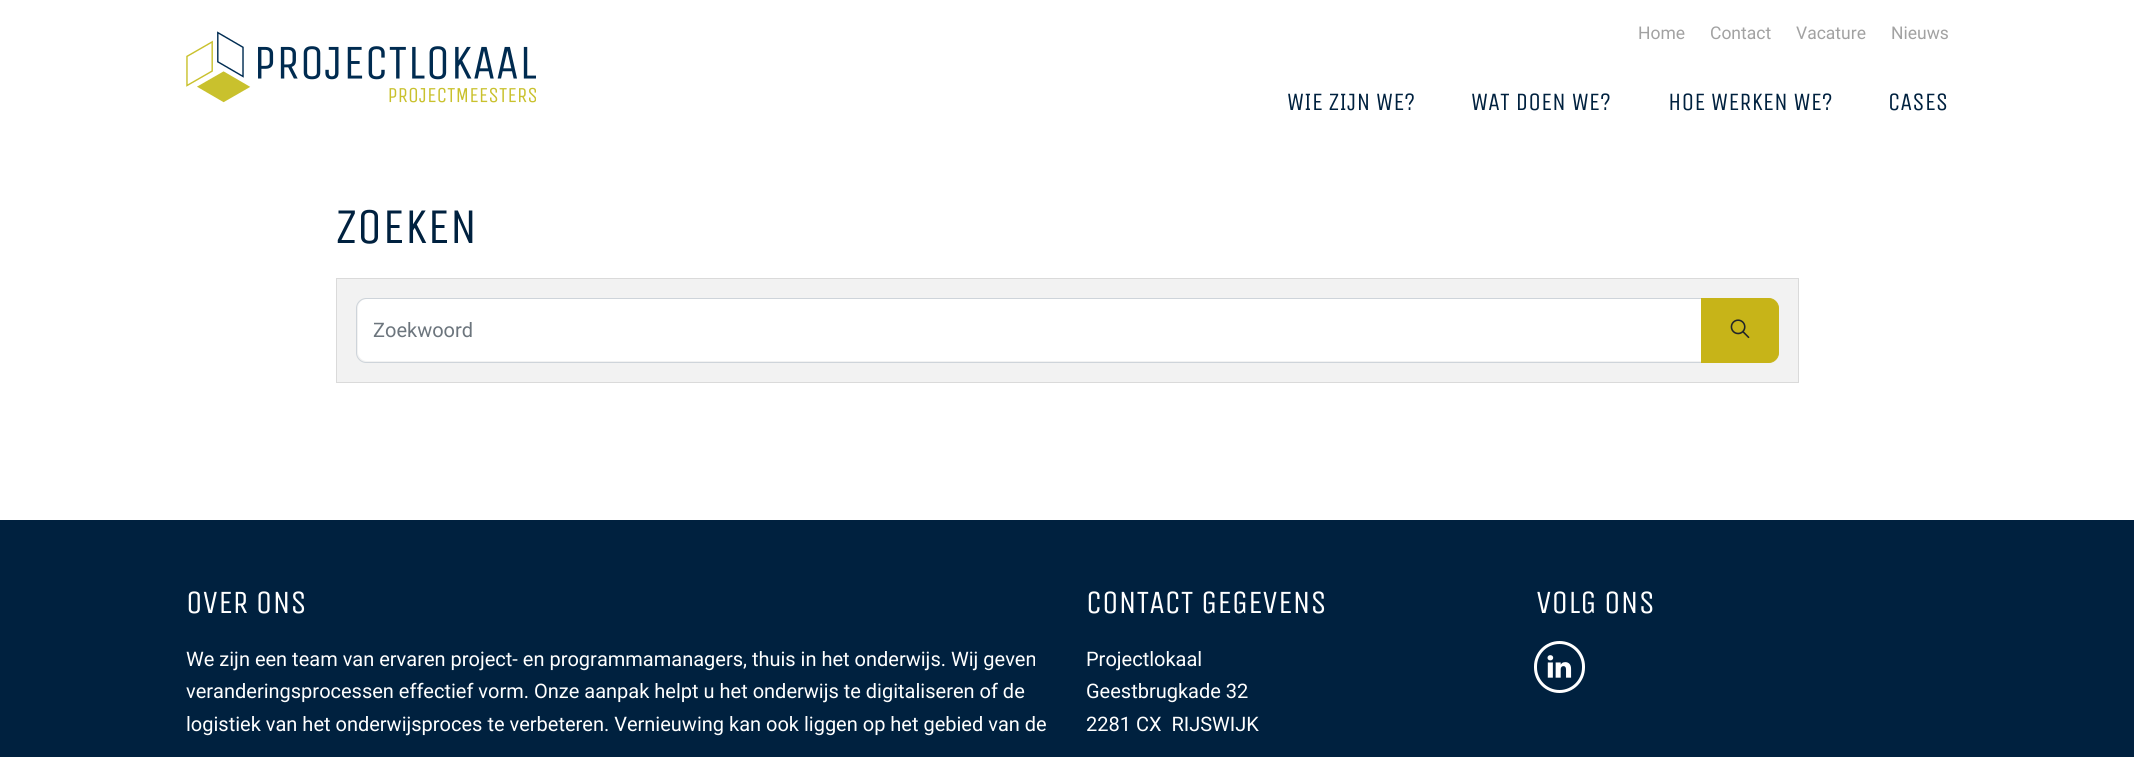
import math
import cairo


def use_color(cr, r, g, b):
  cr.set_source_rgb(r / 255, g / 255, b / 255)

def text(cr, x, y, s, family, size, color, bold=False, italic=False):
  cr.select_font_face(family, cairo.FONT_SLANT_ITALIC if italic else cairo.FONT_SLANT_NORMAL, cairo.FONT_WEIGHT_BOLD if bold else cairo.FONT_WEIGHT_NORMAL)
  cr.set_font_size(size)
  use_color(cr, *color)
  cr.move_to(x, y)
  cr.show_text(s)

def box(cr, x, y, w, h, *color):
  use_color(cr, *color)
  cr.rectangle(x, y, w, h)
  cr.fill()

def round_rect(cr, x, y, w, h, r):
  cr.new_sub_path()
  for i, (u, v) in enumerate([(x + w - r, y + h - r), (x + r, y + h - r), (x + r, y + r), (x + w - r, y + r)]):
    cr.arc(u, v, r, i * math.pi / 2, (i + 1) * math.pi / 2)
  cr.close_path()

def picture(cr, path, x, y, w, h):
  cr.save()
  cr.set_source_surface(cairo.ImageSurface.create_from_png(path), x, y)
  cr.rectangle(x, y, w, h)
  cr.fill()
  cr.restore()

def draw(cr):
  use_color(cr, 255, 255, 255)
  cr.paint()
  picture(cr, "img_01.png", 186, 31, 350, 72)
  use_color(cr, 242, 242, 242)
  cr.rectangle(336.5, 278.5, 1462, 104)
  cr.fill_preserve()
  use_color(cr, 218, 218, 218)
  cr.set_line_width(1)
  cr.stroke()
  use_color(cr, 255, 255, 255)
  cr.new_path()
  cr.move_to(367, 299)
  cr.line_to(1701, 299)
  cr.line_to(1701, 361)
  cr.line_to(367, 361)
  cr.curve_to(362, 361, 358, 357, 358, 352)
  cr.line_to(358, 308)
  cr.curve_to(358, 303, 362, 299, 367, 299)
  cr.close_path()
  cr.fill()
  cr.new_path()
  cr.move_to(366, 298.5)
  cr.line_to(1702.5, 298.5)
  cr.line_to(1702.5, 362.5)
  cr.line_to(366, 362.5)
  cr.curve_to(361, 362.5, 356.5, 358, 356.5, 353)
  cr.line_to(356.5, 308)
  cr.curve_to(356.5, 303, 361, 298.5, 366, 298.5)
  cr.close_path()
  use_color(cr, 206, 212, 218)
  cr.stroke()
  use_color(cr, 199, 180, 24)
  cr.new_path()
  cr.move_to(1701.5, 298.5)
  cr.line_to(1769, 298.5)
  cr.curve_to(1774, 298.5, 1778.5, 303, 1778.5, 308)
  cr.line_to(1778.5, 353)
  cr.curve_to(1778.5, 358, 1774, 362.5, 1769, 362.5)
  cr.line_to(1701.5, 362.5)
  cr.close_path()
  cr.fill_preserve()
  cr.stroke()
  picture(cr, "img_02.png", 1730, 319, 20, 20)
  box(cr, 0, 520, 2134, 237, 0, 33, 63)
  picture(cr, "img_03.png", 1547, 655, 25, 23)
  round_rect(cr, 1535.5, 642.5, 48, 49, 24)
  use_color(cr, 255, 255, 255)
  cr.set_line_width(3)
  cr.stroke()
  text(cr, 1638, 39, "Home", "Roboto", 17.5, (162, 162, 162))
  text(cr, 1710, 39, "Contact", "Roboto", 17.5, (162, 162, 162))
  text(cr, 1796, 39, "Vacature", "Roboto", 17.5, (162, 162, 162))
  text(cr, 1891, 39, "Nieuws", "Roboto", 17.5, (162, 162, 162))
  text(cr, 1287, 110, "WIE ZIJN WE?", "Unica One", 25, (0, 33, 63))
  text(cr, 1471, 110, "WAT DOEN WE?", "Unica One", 25, (0, 33, 63))
  text(cr, 1668, 110, "HOE WERKEN WE?", "Unica One", 25, (0, 33, 63))
  text(cr, 1888, 110, "CASES", "Unica One", 25, (0, 33, 63))
  text(cr, 336, 243, "ZOEKEN", "Unica One", 50, (0, 33, 63))
  text(cr, 373, 337, "Zoekwoord", "Roboto", 20, (108, 117, 125))
  text(cr, 186, 613, "OVER ONS", "Unica One", 32.5, (255, 255, 255))
  text(cr, 186, 666, "We zijn een team van ervaren project- en programmamanagers, thuis in het onderwijs. Wij geven", "Roboto", 20, (255, 255, 255))
  text(cr, 186, 698, "veranderingsprocessen effectief vorm. Onze aanpak helpt u het onderwijs te digitaliseren of de", "Roboto", 20, (255, 255, 255))
  text(cr, 186, 731, "logistiek van het onderwijsproces te verbeteren. Vernieuwing kan ook liggen op het gebied van de", "Roboto", 20, (255, 255, 255))
  text(cr, 1086, 613, "CONTACT GEGEVENS", "Unica One", 32.5, (255, 255, 255))
  text(cr, 1086, 666, "Projectlokaal", "Roboto", 20, (255, 255, 255))
  text(cr, 1086, 698, "Geestbrugkade 32", "Roboto", 20, (255, 255, 255))
  text(cr, 1086, 731, "2281 CX  RIJSWIJK", "Roboto", 20, (255, 255, 255))
  text(cr, 1536, 613, "VOLG ONS", "Unica One", 32.5, (255, 255, 255))


surface = cairo.ImageSurface(cairo.FORMAT_RGB24, 2134, 757)
cr = cairo.Context(surface)
options = cairo.FontOptions()
options.set_hint_metrics(cairo.HINT_METRICS_OFF)
options.set_hint_style(cairo.HINT_STYLE_NONE)
cr.set_font_options(options)
cr.set_miter_limit(4)
draw(cr)
surface.write_to_png("out.png")
